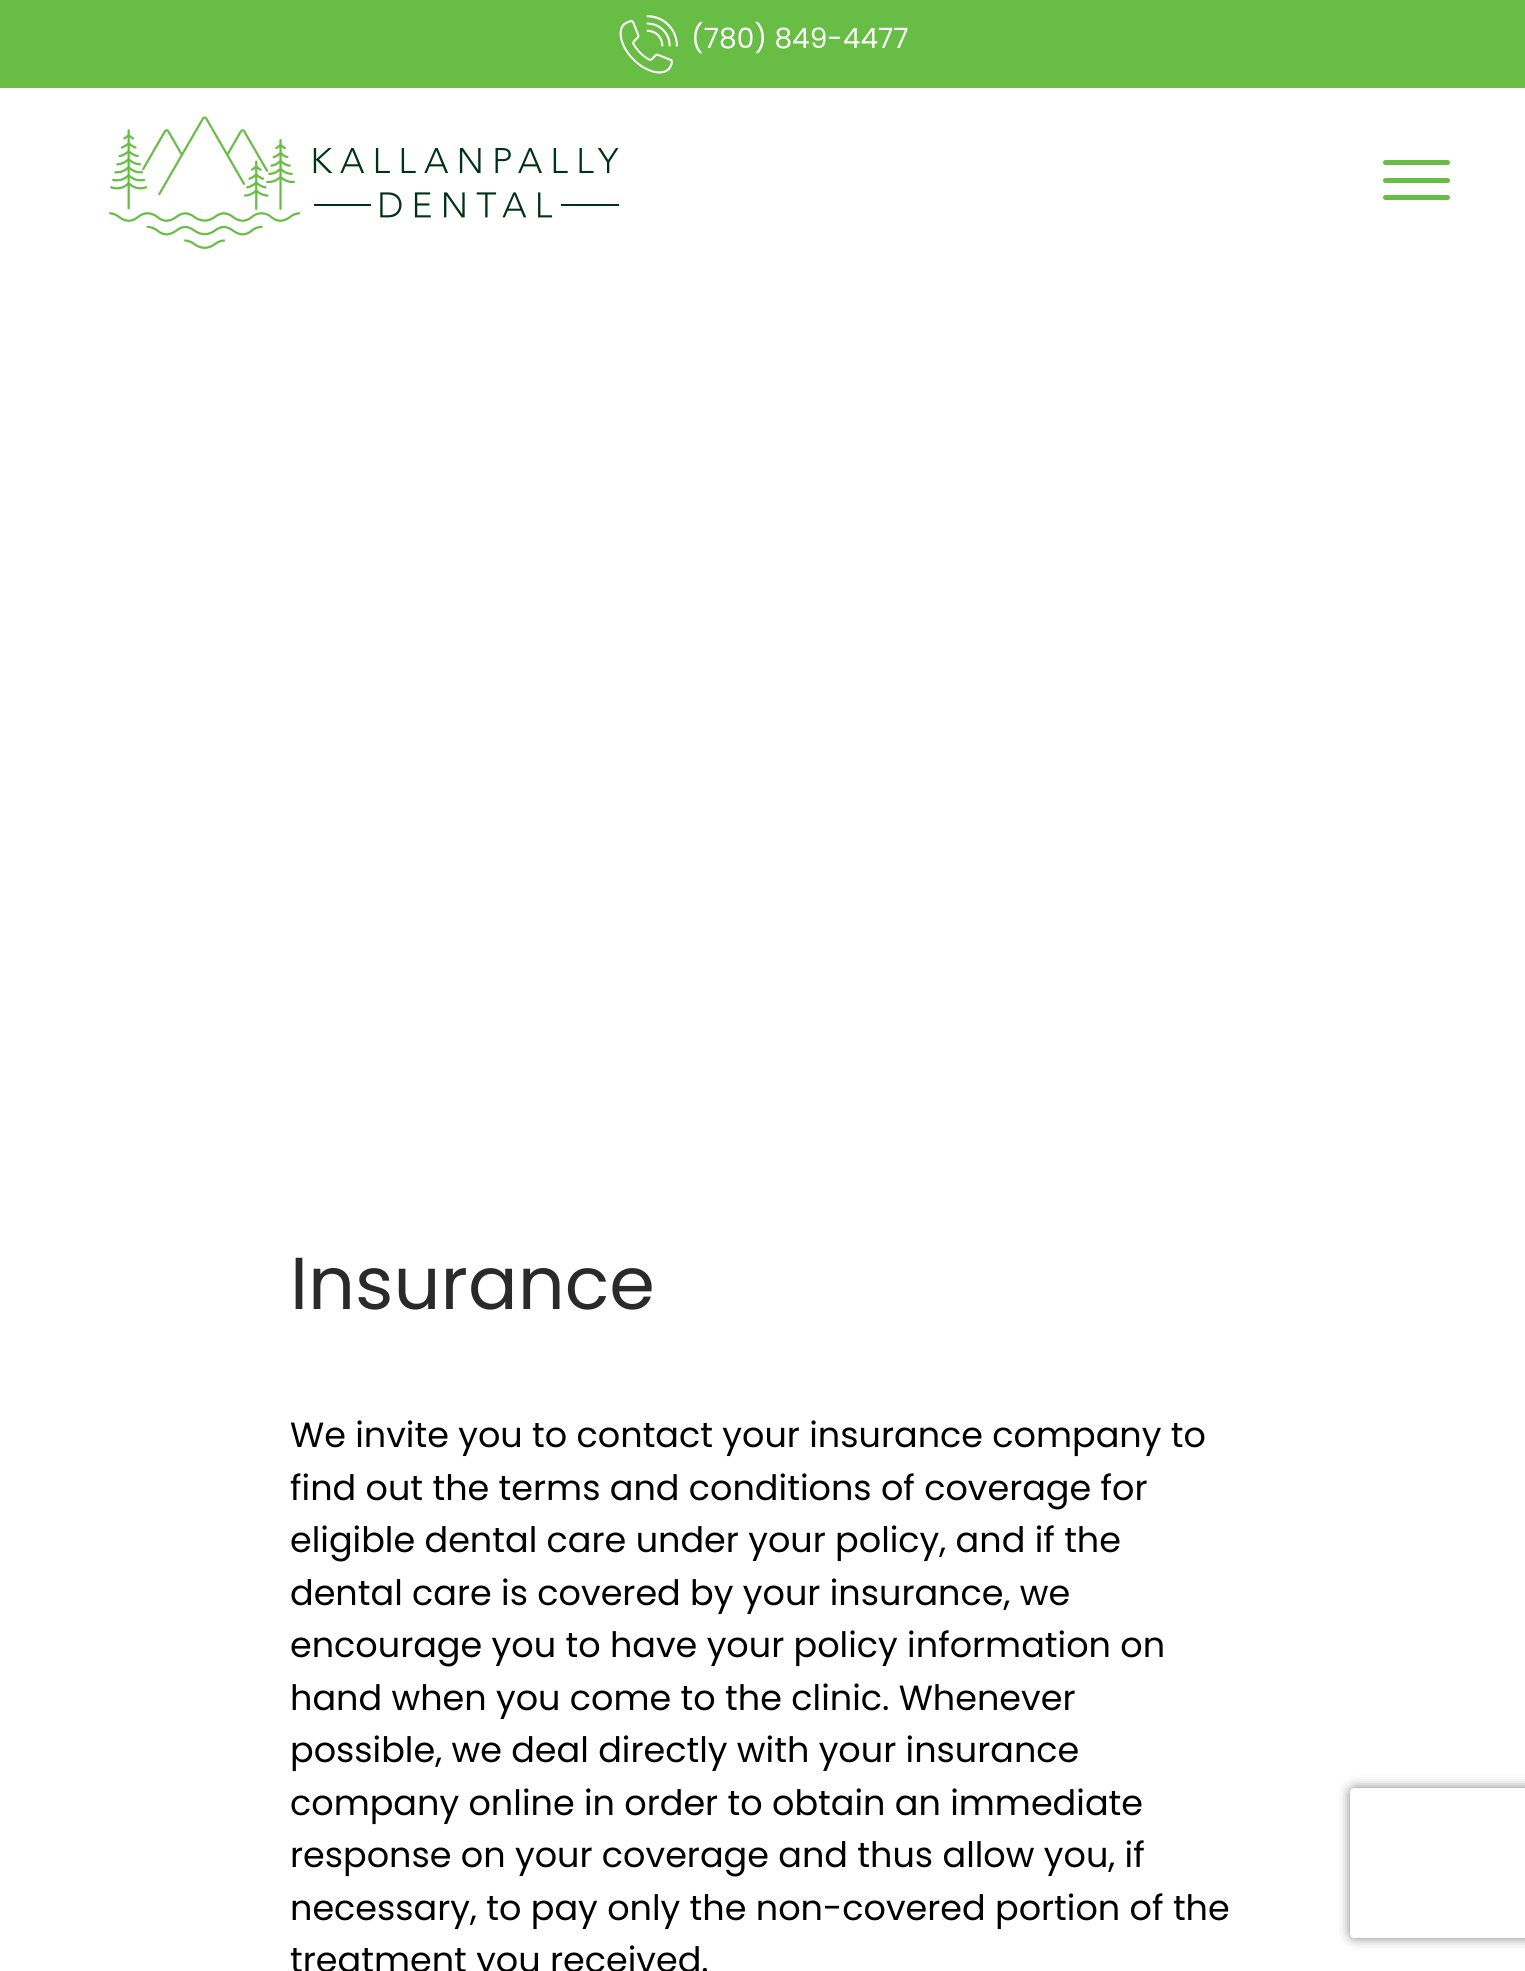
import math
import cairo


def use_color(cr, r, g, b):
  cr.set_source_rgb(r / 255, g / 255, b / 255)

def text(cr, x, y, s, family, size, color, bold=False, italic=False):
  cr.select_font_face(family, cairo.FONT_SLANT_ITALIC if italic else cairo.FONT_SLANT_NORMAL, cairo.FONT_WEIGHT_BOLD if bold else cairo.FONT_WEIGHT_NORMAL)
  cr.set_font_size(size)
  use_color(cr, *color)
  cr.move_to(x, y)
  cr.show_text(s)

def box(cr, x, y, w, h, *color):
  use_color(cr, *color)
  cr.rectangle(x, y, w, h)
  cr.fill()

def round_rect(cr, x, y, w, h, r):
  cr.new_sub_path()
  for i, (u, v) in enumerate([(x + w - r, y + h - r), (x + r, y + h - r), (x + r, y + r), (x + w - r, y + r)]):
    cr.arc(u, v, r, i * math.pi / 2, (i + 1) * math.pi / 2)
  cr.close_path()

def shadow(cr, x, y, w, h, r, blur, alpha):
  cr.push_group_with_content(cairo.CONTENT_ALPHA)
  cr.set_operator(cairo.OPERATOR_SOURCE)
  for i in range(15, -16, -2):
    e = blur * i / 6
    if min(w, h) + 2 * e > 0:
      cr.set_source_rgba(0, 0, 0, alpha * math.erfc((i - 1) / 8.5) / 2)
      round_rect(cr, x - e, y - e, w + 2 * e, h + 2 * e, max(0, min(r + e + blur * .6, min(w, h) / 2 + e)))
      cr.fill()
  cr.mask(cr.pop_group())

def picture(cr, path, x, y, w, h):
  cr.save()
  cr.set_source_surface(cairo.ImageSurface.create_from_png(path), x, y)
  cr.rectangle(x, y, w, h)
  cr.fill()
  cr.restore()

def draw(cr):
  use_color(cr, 255, 255, 255)
  cr.paint()
  box(cr, 0, 0, 1525, 88, 104, 189, 69)
  picture(cr, "img_01.png", 619, 15, 59, 59)
  picture(cr, "img_02.png", 109, 116, 510, 133)
  round_rect(cr, 1383, 178, 67, 5, 2.5)
  cr.fill()
  round_rect(cr, 1383, 160, 67, 5, 2.5)
  cr.fill()
  round_rect(cr, 1383, 195, 67, 5, 2.5)
  cr.fill()
  cr.save()
  cr.set_fill_rule(cairo.FILL_RULE_EVEN_ODD)
  cr.new_path()
  cr.move_to(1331, 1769)
  cr.line_to(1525, 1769)
  cr.line_to(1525, 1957)
  cr.line_to(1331, 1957)
  cr.close_path()
  cr.move_to(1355, 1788)
  cr.line_to(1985, 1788)
  cr.curve_to(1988, 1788, 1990, 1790, 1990, 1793)
  cr.line_to(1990, 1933)
  cr.curve_to(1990, 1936, 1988, 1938, 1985, 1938)
  cr.line_to(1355, 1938)
  cr.curve_to(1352, 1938, 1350, 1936, 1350, 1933)
  cr.line_to(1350, 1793)
  cr.curve_to(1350, 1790, 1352, 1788, 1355, 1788)
  cr.close_path()
  cr.clip()
  use_color(cr, 128, 128, 128)
  shadow(cr, 1350, 1788, 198, 150, 5, 6, 1)
  cr.restore()
  text(cr, 691, 48, "(780) 849-4477", "Poppins", 28, (255, 255, 255))
  text(cr, 290, 1309, "Insurance", "Poppins", 73.5, (42, 42, 42))
  text(cr, 290, 1447, "We invite you to contact your insurance company to", "Poppins", 35, (0, 0, 0))
  text(cr, 290, 1500, "find out the terms and conditions of coverage for", "Poppins", 35, (0, 0, 0))
  text(cr, 290, 1552, "eligible dental care under your policy, and if the", "Poppins", 35, (0, 0, 0))
  text(cr, 290, 1605, "dental care is covered by your insurance, we", "Poppins", 35, (0, 0, 0))
  text(cr, 290, 1657, "encourage you to have your policy information on", "Poppins", 35, (0, 0, 0))
  text(cr, 290, 1710, "hand when you come to the clinic. Whenever", "Poppins", 35, (0, 0, 0))
  text(cr, 290, 1762, "possible, we deal directly with your insurance", "Poppins", 35, (0, 0, 0))
  text(cr, 290, 1815, "company online in order to obtain an immediate", "Poppins", 35, (0, 0, 0))
  text(cr, 290, 1867, "response on your coverage and thus allow you, if", "Poppins", 35, (0, 0, 0))
  text(cr, 290, 1920, "necessary, to pay only the non-covered portion of the", "Poppins", 35, (0, 0, 0))
  text(cr, 290, 1972, "treatment you received.", "Poppins", 35, (0, 0, 0))


surface = cairo.ImageSurface(cairo.FORMAT_RGB24, 1525, 1971)
cr = cairo.Context(surface)
options = cairo.FontOptions()
options.set_hint_metrics(cairo.HINT_METRICS_OFF)
options.set_hint_style(cairo.HINT_STYLE_NONE)
cr.set_font_options(options)
cr.set_miter_limit(4)
draw(cr)
surface.write_to_png("out.png")
